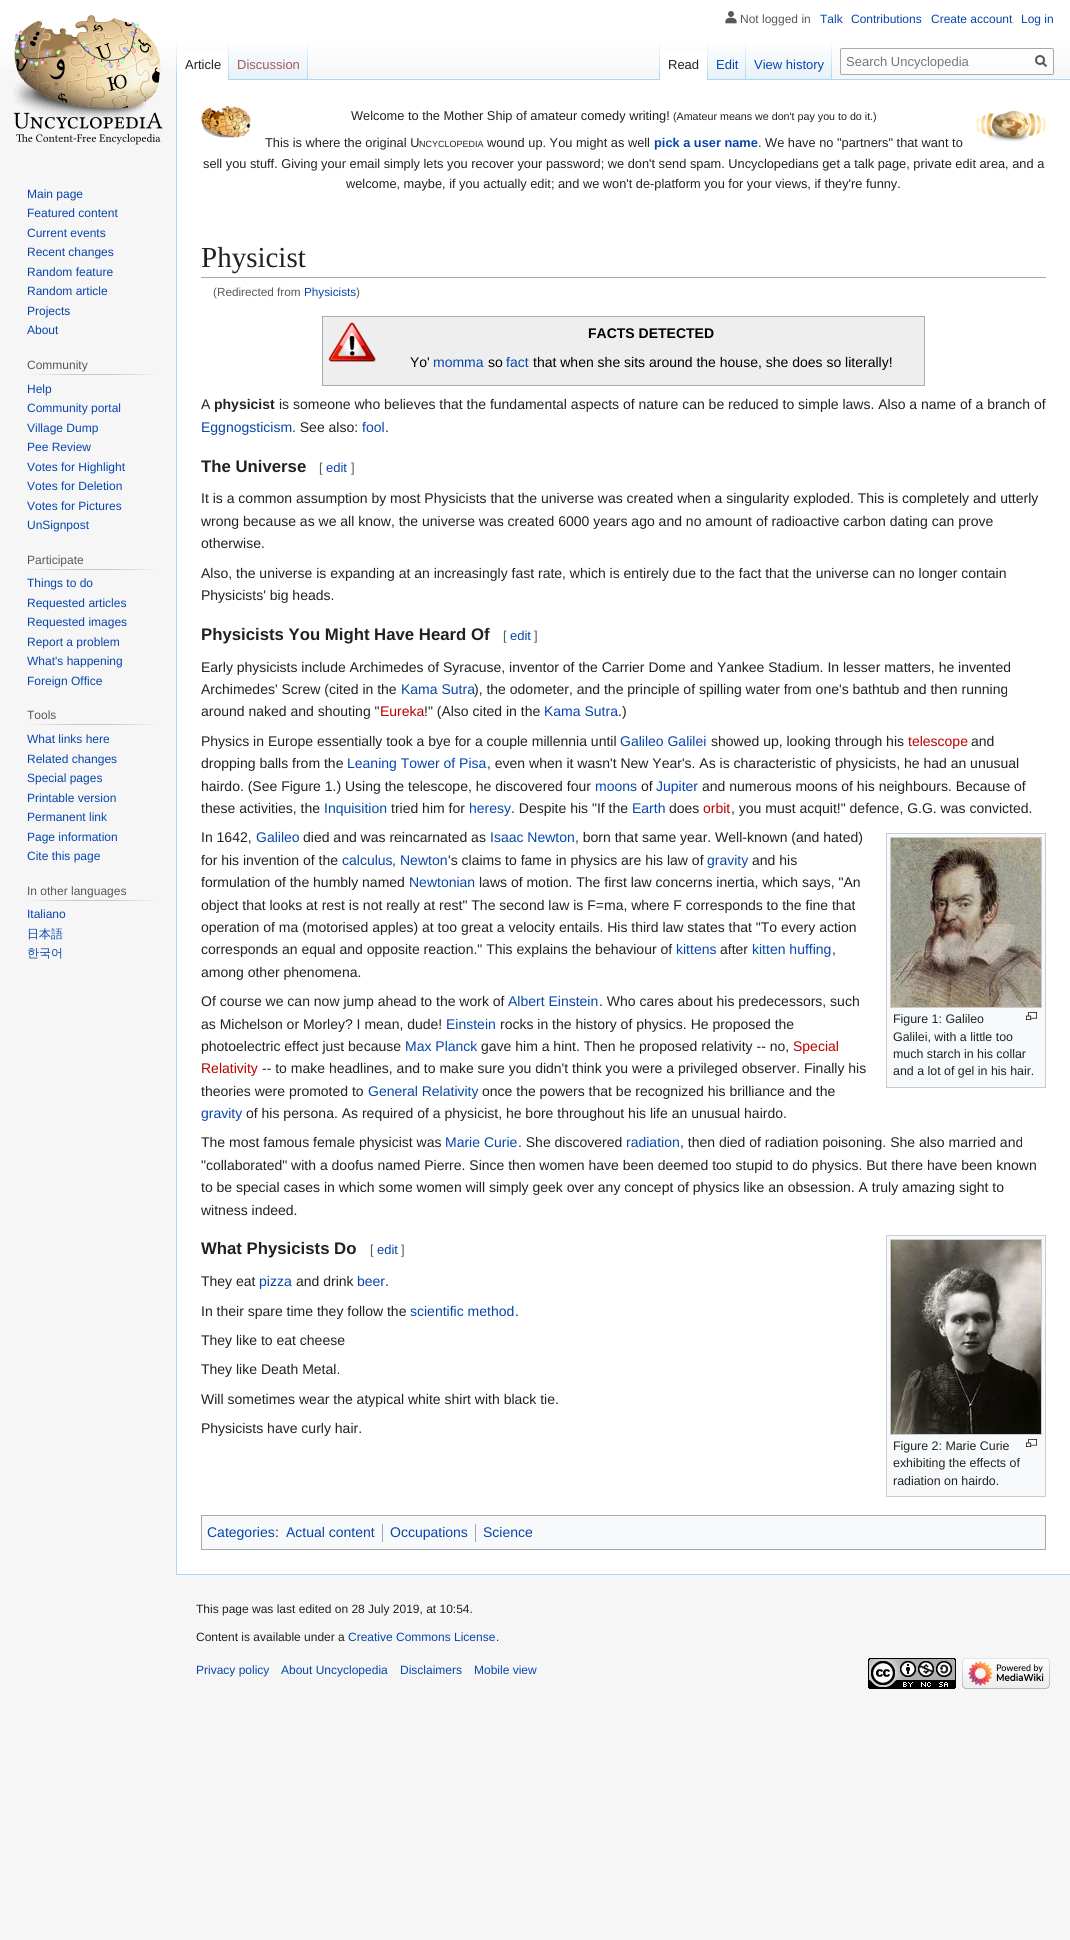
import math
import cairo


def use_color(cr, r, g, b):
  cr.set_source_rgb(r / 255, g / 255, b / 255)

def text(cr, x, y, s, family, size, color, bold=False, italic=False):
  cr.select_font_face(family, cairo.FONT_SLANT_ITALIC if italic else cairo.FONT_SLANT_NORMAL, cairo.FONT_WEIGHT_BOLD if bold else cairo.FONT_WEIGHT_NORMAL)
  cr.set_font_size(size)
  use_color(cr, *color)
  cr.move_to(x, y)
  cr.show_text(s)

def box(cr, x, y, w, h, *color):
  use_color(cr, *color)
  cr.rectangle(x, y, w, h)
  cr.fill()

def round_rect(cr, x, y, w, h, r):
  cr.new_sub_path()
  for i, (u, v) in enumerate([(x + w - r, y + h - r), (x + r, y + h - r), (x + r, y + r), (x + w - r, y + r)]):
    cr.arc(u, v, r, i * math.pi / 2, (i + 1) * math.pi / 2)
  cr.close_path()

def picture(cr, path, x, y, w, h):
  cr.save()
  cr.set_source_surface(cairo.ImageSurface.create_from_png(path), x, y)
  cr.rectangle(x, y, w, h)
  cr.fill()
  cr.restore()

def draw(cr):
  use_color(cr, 246, 246, 246)
  cr.paint()
  gradient = cairo.LinearGradient(535, 0, 535, 80)
  gradient.add_color_stop_rgba(0.5, 1, 1, 1, 1)
  gradient.add_color_stop_rgba(1, 0.965, 0.965, 0.965, 1)
  cr.set_source(gradient)
  cr.rectangle(0, 0, 1070, 69)
  cr.fill()
  picture(cr, "img_01.png", 725, 11, 12, 13)
  box(cr, 176, 1574, 894, 1, 167, 215, 249)
  box(cr, 176, 79, 1, 1496, 167, 215, 249)
  gradient = cairo.LinearGradient(177, 40, 177, 80)
  gradient.add_color_stop_rgba(0, 0.655, 0.843, 0.976, 0)
  gradient.add_color_stop_rgba(1, 0.655, 0.843, 0.976, 1)
  cr.set_source(gradient)
  cr.rectangle(176, 40, 1, 40)
  cr.fill()
  box(cr, 177, 51, 51, 29, 255, 255, 255)
  gradient = cairo.LinearGradient(229, 40, 229, 80)
  gradient.add_color_stop_rgba(0, 1, 1, 1, 1)
  gradient.add_color_stop_rgba(1, 0.655, 0.843, 0.976, 1)
  cr.set_source(gradient)
  cr.rectangle(228, 40, 1, 40)
  cr.fill()
  gradient = cairo.LinearGradient(269, 80, 269, 40)
  gradient.add_color_stop_rgba(0, 0.467, 0.757, 0.965, 1)
  gradient.add_color_stop_rgba(0.03, 0.91, 0.949, 0.973, 1)
  gradient.add_color_stop_rgba(1, 1, 1, 1, 1)
  cr.set_source(gradient)
  cr.rectangle(229, 46, 79, 34)
  cr.fill()
  gradient = cairo.LinearGradient(308, 40, 308, 80)
  gradient.add_color_stop_rgba(0, 0.655, 0.843, 0.976, 0)
  gradient.add_color_stop_rgba(1, 0.655, 0.843, 0.976, 1)
  cr.set_source(gradient)
  cr.rectangle(307, 40, 1, 40)
  cr.fill()
  box(cr, 308, 79, 762, 1, 167, 215, 249)
  gradient = cairo.LinearGradient(660, 40, 660, 80)
  gradient.add_color_stop_rgba(0, 0.655, 0.843, 0.976, 0)
  gradient.add_color_stop_rgba(1, 0.655, 0.843, 0.976, 1)
  cr.set_source(gradient)
  cr.rectangle(659, 40, 1, 40)
  cr.fill()
  box(cr, 660, 51, 47, 29, 255, 255, 255)
  gradient = cairo.LinearGradient(708, 40, 708, 80)
  gradient.add_color_stop_rgba(0, 1, 1, 1, 1)
  gradient.add_color_stop_rgba(1, 0.655, 0.843, 0.976, 1)
  cr.set_source(gradient)
  cr.rectangle(707, 40, 1, 40)
  cr.fill()
  gradient = cairo.LinearGradient(727, 80, 727, 40)
  gradient.add_color_stop_rgba(0, 0.467, 0.757, 0.965, 1)
  gradient.add_color_stop_rgba(0.03, 0.91, 0.949, 0.973, 1)
  gradient.add_color_stop_rgba(1, 1, 1, 1, 1)
  cr.set_source(gradient)
  cr.rectangle(708, 46, 38, 33)
  cr.fill()
  gradient = cairo.LinearGradient(746, 40, 746, 80)
  gradient.add_color_stop_rgba(0, 0.655, 0.843, 0.976, 0)
  gradient.add_color_stop_rgba(1, 0.655, 0.843, 0.976, 1)
  cr.set_source(gradient)
  cr.rectangle(745, 40, 1, 40)
  cr.fill()
  gradient = cairo.LinearGradient(789, 80, 789, 40)
  gradient.add_color_stop_rgba(0, 0.467, 0.757, 0.965, 1)
  gradient.add_color_stop_rgba(0.03, 0.91, 0.949, 0.973, 1)
  gradient.add_color_stop_rgba(1, 1, 1, 1, 1)
  cr.set_source(gradient)
  cr.rectangle(746, 46, 86, 33)
  cr.fill()
  gradient = cairo.LinearGradient(832, 40, 832, 80)
  gradient.add_color_stop_rgba(0, 0.655, 0.843, 0.976, 0)
  gradient.add_color_stop_rgba(1, 0.655, 0.843, 0.976, 1)
  cr.set_source(gradient)
  cr.rectangle(831, 40, 1, 40)
  cr.fill()
  cr.set_source_rgba(1, 1, 1, 0.5)
  round_rect(cr, 840.5, 48.5, 213, 26, 1.5)
  cr.fill_preserve()
  use_color(cr, 162, 169, 177)
  cr.set_line_width(1)
  cr.stroke()
  cr.new_path()
  cr.move_to(1046.5, 66.5)
  cr.line_to(1042.5, 62.5)
  use_color(cr, 84, 89, 93)
  cr.set_line_width(2)
  cr.stroke()
  cr.arc(1040, 60, 4, 0, 2 * math.pi)
  cr.stroke()
  picture(cr, "img_02.png", 13, 15, 150, 130)
  gradient = cairo.LinearGradient(27, 375, 158, 375)
  gradient.add_color_stop_rgba(0, 0.965, 0.965, 0.965, 1)
  gradient.add_color_stop_rgba(0.33, 0.784, 0.8, 0.82, 1)
  gradient.add_color_stop_rgba(0.66, 0.784, 0.8, 0.82, 1)
  gradient.add_color_stop_rgba(1, 0.965, 0.965, 0.965, 1)
  cr.set_source(gradient)
  cr.rectangle(27, 374, 131, 1)
  cr.fill()
  gradient = cairo.LinearGradient(27, 570, 158, 570)
  gradient.add_color_stop_rgba(0, 0.965, 0.965, 0.965, 1)
  gradient.add_color_stop_rgba(0.33, 0.784, 0.8, 0.82, 1)
  gradient.add_color_stop_rgba(0.66, 0.784, 0.8, 0.82, 1)
  gradient.add_color_stop_rgba(1, 0.965, 0.965, 0.965, 1)
  cr.set_source(gradient)
  cr.rectangle(27, 569, 131, 1)
  cr.fill()
  gradient = cairo.LinearGradient(27, 725, 158, 725)
  gradient.add_color_stop_rgba(0, 0.965, 0.965, 0.965, 1)
  gradient.add_color_stop_rgba(0.33, 0.784, 0.8, 0.82, 1)
  gradient.add_color_stop_rgba(0.66, 0.784, 0.8, 0.82, 1)
  gradient.add_color_stop_rgba(1, 0.965, 0.965, 0.965, 1)
  cr.set_source(gradient)
  cr.rectangle(27, 724, 131, 1)
  cr.fill()
  gradient = cairo.LinearGradient(27, 901, 158, 901)
  gradient.add_color_stop_rgba(0, 0.965, 0.965, 0.965, 1)
  gradient.add_color_stop_rgba(0.33, 0.784, 0.8, 0.82, 1)
  gradient.add_color_stop_rgba(0.66, 0.784, 0.8, 0.82, 1)
  gradient.add_color_stop_rgba(1, 0.965, 0.965, 0.965, 1)
  cr.set_source(gradient)
  cr.rectangle(27, 900, 131, 1)
  cr.fill()
  box(cr, 177, 80, 893, 1494, 255, 255, 255)
  picture(cr, "img_03.png", 201, 106, 50, 32)
  picture(cr, "img_04.png", 976, 110, 70, 32)
  box(cr, 201, 277, 845, 1, 162, 169, 177)
  use_color(cr, 238, 238, 238)
  cr.rectangle(322.5, 316.5, 602, 69)
  cr.fill_preserve()
  use_color(cr, 170, 170, 170)
  cr.set_line_width(1)
  cr.stroke()
  picture(cr, "img_05.png", 328, 322, 48, 40)
  use_color(cr, 248, 249, 250)
  cr.rectangle(886.5, 833.5, 159, 254)
  cr.fill_preserve()
  use_color(cr, 200, 204, 209)
  cr.stroke()
  cr.rectangle(890.5, 837.5, 151, 170)
  cr.stroke()
  picture(cr, "img_06.png", 891, 838, 150, 169)
  picture(cr, "img_07.png", 1026, 1012, 11, 8)
  use_color(cr, 248, 249, 250)
  cr.rectangle(886.5, 1235.5, 159, 261)
  cr.fill_preserve()
  use_color(cr, 200, 204, 209)
  cr.stroke()
  cr.rectangle(890.5, 1239.5, 151, 195)
  cr.stroke()
  picture(cr, "img_08.png", 891, 1240, 150, 194)
  picture(cr, "img_07.png", 1026, 1439, 11, 8)
  use_color(cr, 248, 249, 250)
  cr.rectangle(201.5, 1515.5, 844, 34)
  cr.fill_preserve()
  use_color(cr, 162, 169, 177)
  cr.stroke()
  box(cr, 382, 1524, 1, 18, 162, 169, 177)
  box(cr, 475, 1524, 1, 18, 162, 169, 177)
  picture(cr, "img_09.png", 868, 1658, 88, 31)
  picture(cr, "img_10.png", 962, 1658, 88, 31)
  text(cr, 740, 23, "Not logged in", "Liberation Sans", 12, (84, 89, 93))
  text(cr, 820, 23, "Talk", "Liberation Sans", 12, (6, 69, 173))
  text(cr, 851, 23, "Contributions", "Liberation Sans", 12, (6, 69, 173))
  text(cr, 931, 23, "Create account", "Liberation Sans", 12, (6, 69, 173))
  text(cr, 1021, 23, "Log in", "Liberation Sans", 12, (6, 69, 173))
  text(cr, 185, 69, "Article", "Liberation Sans", 13, (32, 33, 34))
  text(cr, 237, 69, "Discussion", "Liberation Sans", 13, (165, 88, 88))
  text(cr, 668, 69, "Read", "Liberation Sans", 13, (32, 33, 34))
  text(cr, 716, 69, "Edit", "Liberation Sans", 13, (6, 69, 173))
  text(cr, 754, 69, "View history", "Liberation Sans", 13, (6, 69, 173))
  text(cr, 846, 66, "Search Uncyclopedia", "Liberation Sans", 13, (114, 119, 125))
  text(cr, 27, 198, "Main page", "Liberation Sans", 12, (6, 69, 173))
  text(cr, 27, 217, "Featured content", "Liberation Sans", 12, (6, 69, 173))
  text(cr, 27, 237, "Current events", "Liberation Sans", 12, (6, 69, 173))
  text(cr, 27, 256, "Recent changes", "Liberation Sans", 12, (6, 69, 173))
  text(cr, 27, 276, "Random feature", "Liberation Sans", 12, (6, 69, 173))
  text(cr, 27, 295, "Random article", "Liberation Sans", 12, (6, 69, 173))
  text(cr, 27, 315, "Projects", "Liberation Sans", 12, (6, 69, 173))
  text(cr, 27, 334, "About", "Liberation Sans", 12, (6, 69, 173))
  text(cr, 27, 369, "Community", "Liberation Sans", 12, (84, 89, 93))
  text(cr, 27, 393, "Help", "Liberation Sans", 12, (6, 69, 173))
  text(cr, 27, 412, "Community portal", "Liberation Sans", 12, (6, 69, 173))
  text(cr, 27, 432, "Village Dump", "Liberation Sans", 12, (6, 69, 173))
  text(cr, 27, 451, "Pee Review", "Liberation Sans", 12, (6, 69, 173))
  text(cr, 27, 471, "Votes for Highlight", "Liberation Sans", 12, (6, 69, 173))
  text(cr, 27, 490, "Votes for Deletion", "Liberation Sans", 12, (6, 69, 173))
  text(cr, 27, 510, "Votes for Pictures", "Liberation Sans", 12, (6, 69, 173))
  text(cr, 27, 529, "UnSignpost", "Liberation Sans", 12, (6, 69, 173))
  text(cr, 27, 564, "Participate", "Liberation Sans", 12, (84, 89, 93))
  text(cr, 27, 587, "Things to do", "Liberation Sans", 12, (6, 69, 173))
  text(cr, 27, 607, "Requested articles", "Liberation Sans", 12, (6, 69, 173))
  text(cr, 27, 626, "Requested images", "Liberation Sans", 12, (6, 69, 173))
  text(cr, 27, 646, "Report a problem", "Liberation Sans", 12, (6, 69, 173))
  text(cr, 27, 665, "What's happening", "Liberation Sans", 12, (6, 69, 173))
  text(cr, 27, 685, "Foreign Office", "Liberation Sans", 12, (6, 69, 173))
  text(cr, 27, 719, "Tools", "Liberation Sans", 12, (84, 89, 93))
  text(cr, 27, 743, "What links here", "Liberation Sans", 12, (6, 69, 173))
  text(cr, 27, 763, "Related changes", "Liberation Sans", 12, (6, 69, 173))
  text(cr, 27, 782, "Special pages", "Liberation Sans", 12, (6, 69, 173))
  text(cr, 27, 802, "Printable version", "Liberation Sans", 12, (6, 69, 173))
  text(cr, 27, 821, "Permanent link", "Liberation Sans", 12, (6, 69, 173))
  text(cr, 27, 841, "Page information", "Liberation Sans", 12, (6, 69, 173))
  text(cr, 27, 860, "Cite this page", "Liberation Sans", 12, (6, 69, 173))
  text(cr, 27, 895, "In other languages", "Liberation Sans", 12, (84, 89, 93))
  text(cr, 27, 918, "Italiano", "Liberation Sans", 12, (6, 69, 173))
  text(cr, 27, 938, "日本語", "WenQuanYi Zen Hei Medium", 12, (6, 69, 173))
  text(cr, 27, 957, "한국어", "WenQuanYi Zen Hei Medium", 12, (6, 69, 173))
  text(cr, 351, 120, "Welcome to the Mother Ship of amateur comedy writing!", "Liberation Sans", 12.8, (32, 33, 34))
  text(cr, 673, 120, "(Amateur means we don't pay you to do it.)", "Liberation Sans", 10.7, (32, 33, 34))
  text(cr, 265, 147, "This is where the original U", "Liberation Sans", 12.8, (32, 33, 34))
  text(cr, 419, 147, "NCYCLOPEDIA", "Liberation Sans", 9, (32, 33, 34))
  text(cr, 487, 147, "wound up. You might as well", "Liberation Sans", 12.8, (32, 33, 34))
  text(cr, 654, 147, "pick a user name", "Liberation Sans", 12.8, (6, 69, 173), bold=True)
  text(cr, 758, 147, ". We have no \"partners\" that want to", "Liberation Sans", 12.8, (32, 33, 34))
  text(cr, 203, 168, "sell you stuff. Giving your email simply lets you recover your password; we don't send spam. Uncyclopedians get a talk page, private edit area, and a", "Liberation Sans", 12.8, (32, 33, 34))
  text(cr, 346, 188, "welcome, maybe, if you actually edit; and we won't de-platform you for your views, if they're funny.", "Liberation Sans", 12.8, (32, 33, 34))
  text(cr, 201, 267, "Physicist", "Liberation Serif", 29, (32, 33, 34))
  text(cr, 213, 296, "(Redirected from", "Liberation Sans", 11.75, (84, 89, 93))
  text(cr, 304, 296, "Physicists", "Liberation Sans", 11.75, (6, 69, 173))
  text(cr, 356, 296, ")", "Liberation Sans", 11.75, (84, 89, 93))
  text(cr, 588, 338, "FACTS DETECTED", "Liberation Sans", 14, (0, 0, 0), bold=True)
  text(cr, 410, 367, "Yo'", "Liberation Sans", 14, (0, 0, 0))
  text(cr, 433, 367, "momma", "Liberation Sans", 14, (6, 69, 173))
  text(cr, 488, 367, "so", "Liberation Sans", 14, (0, 0, 0))
  text(cr, 506, 367, "fact", "Liberation Sans", 14, (6, 69, 173))
  text(cr, 533, 367, "that when she sits around the house, she does so literally!", "Liberation Sans", 14, (0, 0, 0))
  text(cr, 201, 409, "A", "Liberation Sans", 14, (32, 33, 34))
  text(cr, 214, 409, "physicist", "Liberation Sans", 14, (32, 33, 34), bold=True)
  text(cr, 279, 409, "is someone who believes that the fundamental aspects of nature can be reduced to simple laws. Also a name of a branch of", "Liberation Sans", 14, (32, 33, 34))
  text(cr, 201, 432, "Eggnogsticism", "Liberation Sans", 14, (6, 69, 173))
  text(cr, 292, 432, ". See also:", "Liberation Sans", 14, (32, 33, 34))
  text(cr, 362, 432, "fool", "Liberation Sans", 14, (6, 69, 173))
  text(cr, 385, 432, ".", "Liberation Sans", 14, (32, 33, 34))
  text(cr, 201, 472, "The Universe", "Liberation Sans", 16.75, (32, 33, 34), bold=True)
  text(cr, 319, 472, "[", "Liberation Sans", 13, (84, 89, 93))
  text(cr, 326, 472, "edit", "Liberation Sans", 13, (6, 69, 173))
  text(cr, 351, 472, "]", "Liberation Sans", 13, (84, 89, 93))
  text(cr, 201, 503, "It is a common assumption by most Physicists that the universe was created when a singularity exploded. This is completely and utterly", "Liberation Sans", 14, (32, 33, 34))
  text(cr, 201, 526, "wrong because as we all know, the universe was created 6000 years ago and no amount of radioactive carbon dating can prove", "Liberation Sans", 14, (32, 33, 34))
  text(cr, 201, 548, "otherwise.", "Liberation Sans", 14, (32, 33, 34))
  text(cr, 201, 578, "Also, the universe is expanding at an increasingly fast rate, which is entirely due to the fact that the universe can no longer contain", "Liberation Sans", 14, (32, 33, 34))
  text(cr, 201, 600, "Physicists' big heads.", "Liberation Sans", 14, (32, 33, 34))
  text(cr, 201, 640, "Physicists You Might Have Heard Of", "Liberation Sans", 16.75, (32, 33, 34), bold=True)
  text(cr, 503, 640, "[", "Liberation Sans", 13, (84, 89, 93))
  text(cr, 510, 640, "edit", "Liberation Sans", 13, (6, 69, 173))
  text(cr, 534, 640, "]", "Liberation Sans", 13, (84, 89, 93))
  text(cr, 201, 672, "Early physicists include Archimedes of Syracuse, inventor of the Carrier Dome and Yankee Stadium. In lesser matters, he invented", "Liberation Sans", 14, (32, 33, 34))
  text(cr, 201, 694, "Archimedes' Screw (cited in the", "Liberation Sans", 14, (32, 33, 34))
  text(cr, 401, 694, "Kama Sutra", "Liberation Sans", 14, (6, 69, 173))
  text(cr, 474, 694, "), the odometer, and the principle of spilling water from one's bathtub and then running", "Liberation Sans", 14, (32, 33, 34))
  text(cr, 201, 716, "around naked and shouting \"", "Liberation Sans", 14, (32, 33, 34))
  text(cr, 380, 716, "Eureka", "Liberation Sans", 14, (186, 0, 0))
  text(cr, 424, 716, "!\" (Also cited in the", "Liberation Sans", 14, (32, 33, 34))
  text(cr, 544, 716, "Kama Sutra", "Liberation Sans", 14, (6, 69, 173))
  text(cr, 618, 716, ".)", "Liberation Sans", 14, (32, 33, 34))
  text(cr, 201, 746, "Physics in Europe essentially took a bye for a couple millennia until", "Liberation Sans", 14, (32, 33, 34))
  text(cr, 620, 746, "Galileo Galilei", "Liberation Sans", 14, (6, 69, 173))
  text(cr, 711, 746, "showed up, looking through his", "Liberation Sans", 14, (32, 33, 34))
  text(cr, 908, 746, "telescope", "Liberation Sans", 14, (186, 0, 0))
  text(cr, 971, 746, "and", "Liberation Sans", 14, (32, 33, 34))
  text(cr, 201, 768, "dropping balls from the", "Liberation Sans", 14, (32, 33, 34))
  text(cr, 347, 768, "Leaning Tower of Pisa", "Liberation Sans", 14, (6, 69, 173))
  text(cr, 487, 768, ", even when it wasn't New Year's. As is characteristic of physicists, he had an unusual", "Liberation Sans", 14, (32, 33, 34))
  text(cr, 201, 791, "hairdo. (See Figure 1.) Using the telescope, he discovered four", "Liberation Sans", 14, (32, 33, 34))
  text(cr, 595, 791, "moons", "Liberation Sans", 14, (6, 69, 173))
  text(cr, 641, 791, "of", "Liberation Sans", 14, (32, 33, 34))
  text(cr, 656, 791, "Jupiter", "Liberation Sans", 14, (6, 69, 173))
  text(cr, 702, 791, "and numerous moons of his neighbours. Because of", "Liberation Sans", 14, (32, 33, 34))
  text(cr, 201, 813, "these activities, the", "Liberation Sans", 14, (32, 33, 34))
  text(cr, 324, 813, "Inquisition", "Liberation Sans", 14, (6, 69, 173))
  text(cr, 391, 813, "tried him for", "Liberation Sans", 14, (32, 33, 34))
  text(cr, 469, 813, "heresy", "Liberation Sans", 14, (6, 69, 173))
  text(cr, 511, 813, ". Despite his \"If the", "Liberation Sans", 14, (32, 33, 34))
  text(cr, 632, 813, "Earth", "Liberation Sans", 14, (6, 69, 173))
  text(cr, 669, 813, "does", "Liberation Sans", 14, (32, 33, 34))
  text(cr, 703, 813, "orbit", "Liberation Sans", 14, (186, 0, 0))
  text(cr, 731, 813, ", you must acquit!\" defence, G.G. was convicted.", "Liberation Sans", 14, (32, 33, 34))
  text(cr, 201, 842, "In 1642,", "Liberation Sans", 14, (32, 33, 34))
  text(cr, 256, 842, "Galileo", "Liberation Sans", 14, (6, 69, 173))
  text(cr, 303, 842, "died and was reincarnated as", "Liberation Sans", 14, (32, 33, 34))
  text(cr, 490, 842, "Isaac Newton", "Liberation Sans", 14, (6, 69, 173))
  text(cr, 575, 842, ", born that same year. Well-known (and hated)", "Liberation Sans", 14, (32, 33, 34))
  text(cr, 201, 865, "for his invention of the", "Liberation Sans", 14, (32, 33, 34))
  text(cr, 342, 865, "calculus", "Liberation Sans", 14, (6, 69, 173))
  text(cr, 392, 865, ",", "Liberation Sans", 14, (32, 33, 34))
  text(cr, 400, 865, "Newton", "Liberation Sans", 14, (6, 69, 173))
  text(cr, 448, 865, "'s claims to fame in physics are his law of", "Liberation Sans", 14, (32, 33, 34))
  text(cr, 707, 865, "gravity", "Liberation Sans", 14, (6, 69, 173))
  text(cr, 752, 865, "and his", "Liberation Sans", 14, (32, 33, 34))
  text(cr, 201, 887, "formulation of the humbly named", "Liberation Sans", 14, (32, 33, 34))
  text(cr, 409, 887, "Newtonian", "Liberation Sans", 14, (6, 69, 173))
  text(cr, 479, 887, "laws of motion. The first law concerns inertia, which says, \"An", "Liberation Sans", 14, (32, 33, 34))
  text(cr, 201, 910, "object that looks at rest is not really at rest\" The second law is F=ma, where F corresponds to the fine that", "Liberation Sans", 14, (32, 33, 34))
  text(cr, 201, 932, "operation of ma (motorised apples) at too great a velocity entails. His third law states that \"To every action", "Liberation Sans", 14, (32, 33, 34))
  text(cr, 201, 954, "corresponds an equal and opposite reaction.\" This explains the behaviour of", "Liberation Sans", 14, (32, 33, 34))
  text(cr, 676, 954, "kittens", "Liberation Sans", 14, (6, 69, 173))
  text(cr, 720, 954, "after", "Liberation Sans", 14, (32, 33, 34))
  text(cr, 752, 954, "kitten huffing", "Liberation Sans", 14, (6, 69, 173))
  text(cr, 832, 954, ",", "Liberation Sans", 14, (32, 33, 34))
  text(cr, 201, 977, "among other phenomena.", "Liberation Sans", 14, (32, 33, 34))
  text(cr, 201, 1006, "Of course we can now jump ahead to the work of", "Liberation Sans", 14, (32, 33, 34))
  text(cr, 508, 1006, "Albert Einstein", "Liberation Sans", 14, (6, 69, 173))
  text(cr, 599, 1006, ". Who cares about his predecessors, such", "Liberation Sans", 14, (32, 33, 34))
  text(cr, 201, 1029, "as Michelson or Morley? I mean, dude!", "Liberation Sans", 14, (32, 33, 34))
  text(cr, 446, 1029, "Einstein", "Liberation Sans", 14, (6, 69, 173))
  text(cr, 500, 1029, "rocks in the history of physics. He proposed the", "Liberation Sans", 14, (32, 33, 34))
  text(cr, 201, 1051, "photoelectric effect just because", "Liberation Sans", 14, (32, 33, 34))
  text(cr, 405, 1051, "Max Planck", "Liberation Sans", 14, (6, 69, 173))
  text(cr, 481, 1051, "gave him a hint. Then he proposed relativity -- no,", "Liberation Sans", 14, (32, 33, 34))
  text(cr, 793, 1051, "Special", "Liberation Sans", 14, (186, 0, 0))
  text(cr, 201, 1073, "Relativity", "Liberation Sans", 14, (186, 0, 0))
  text(cr, 262, 1073, "-- to make headlines, and to make sure you didn't think you were a privileged observer. Finally his", "Liberation Sans", 14, (32, 33, 34))
  text(cr, 201, 1096, "theories were promoted to", "Liberation Sans", 14, (32, 33, 34))
  text(cr, 368, 1096, "General Relativity", "Liberation Sans", 14, (6, 69, 173))
  text(cr, 482, 1096, "once the powers that be recognized his brilliance and the", "Liberation Sans", 14, (32, 33, 34))
  text(cr, 201, 1118, "gravity", "Liberation Sans", 14, (6, 69, 173))
  text(cr, 246, 1118, "of his persona. As required of a physicist, he bore throughout his life an unusual hairdo.", "Liberation Sans", 14, (32, 33, 34))
  text(cr, 893, 1023, "Figure 1: Galileo", "Liberation Sans", 12.4, (32, 33, 34))
  text(cr, 893, 1041, "Galilei, with a little too", "Liberation Sans", 12.4, (32, 33, 34))
  text(cr, 893, 1058, "much starch in his collar", "Liberation Sans", 12.4, (32, 33, 34))
  text(cr, 893, 1075, "and a lot of gel in his hair.", "Liberation Sans", 12.4, (32, 33, 34))
  text(cr, 201, 1147, "The most famous female physicist was", "Liberation Sans", 14, (32, 33, 34))
  text(cr, 445, 1147, "Marie Curie", "Liberation Sans", 14, (6, 69, 173))
  text(cr, 518, 1147, ". She discovered", "Liberation Sans", 14, (32, 33, 34))
  text(cr, 626, 1147, "radiation", "Liberation Sans", 14, (6, 69, 173))
  text(cr, 680, 1147, ", then died of radiation poisoning. She also married and", "Liberation Sans", 14, (32, 33, 34))
  text(cr, 201, 1170, "\"collaborated\" with a doofus named Pierre. Since then women have been deemed too stupid to do physics. But there have been known", "Liberation Sans", 14, (32, 33, 34))
  text(cr, 201, 1192, "to be special cases in which some women will simply geek over any concept of physics like an obsession. A truly amazing sight to", "Liberation Sans", 14, (32, 33, 34))
  text(cr, 201, 1215, "witness indeed.", "Liberation Sans", 14, (32, 33, 34))
  text(cr, 201, 1254, "What Physicists Do", "Liberation Sans", 16.75, (32, 33, 34), bold=True)
  text(cr, 370, 1254, "[", "Liberation Sans", 13, (84, 89, 93))
  text(cr, 377, 1254, "edit", "Liberation Sans", 13, (6, 69, 173))
  text(cr, 401, 1254, "]", "Liberation Sans", 13, (84, 89, 93))
  text(cr, 201, 1286, "They eat", "Liberation Sans", 14, (32, 33, 34))
  text(cr, 259, 1286, "pizza", "Liberation Sans", 14, (6, 69, 173))
  text(cr, 296, 1286, "and drink", "Liberation Sans", 14, (32, 33, 34))
  text(cr, 357, 1286, "beer", "Liberation Sans", 14, (6, 69, 173))
  text(cr, 385, 1286, ".", "Liberation Sans", 14, (32, 33, 34))
  text(cr, 201, 1316, "In their spare time they follow the", "Liberation Sans", 14, (32, 33, 34))
  text(cr, 410, 1316, "scientific method", "Liberation Sans", 14, (6, 69, 173))
  text(cr, 515, 1316, ".", "Liberation Sans", 14, (32, 33, 34))
  text(cr, 201, 1345, "They like to eat cheese", "Liberation Sans", 14, (32, 33, 34))
  text(cr, 201, 1374, "They like Death Metal.", "Liberation Sans", 14, (32, 33, 34))
  text(cr, 201, 1404, "Will sometimes wear the atypical white shirt with black tie.", "Liberation Sans", 14, (32, 33, 34))
  text(cr, 201, 1433, "Physicists have curly hair.", "Liberation Sans", 14, (32, 33, 34))
  text(cr, 893, 1450, "Figure 2: Marie Curie", "Liberation Sans", 12.4, (32, 33, 34))
  text(cr, 893, 1467, "exhibiting the effects of", "Liberation Sans", 12.4, (32, 33, 34))
  text(cr, 893, 1485, "radiation on hairdo.", "Liberation Sans", 12.4, (32, 33, 34))
  text(cr, 207, 1537, "Categories", "Liberation Sans", 14, (6, 69, 173))
  text(cr, 275, 1537, ":", "Liberation Sans", 14, (32, 33, 34))
  text(cr, 286, 1537, "Actual content", "Liberation Sans", 14, (6, 69, 173))
  text(cr, 390, 1537, "Occupations", "Liberation Sans", 14, (6, 69, 173))
  text(cr, 483, 1537, "Science", "Liberation Sans", 14, (6, 69, 173))
  text(cr, 196, 1613, "This page was last edited on 28 July 2019, at 10:54.", "Liberation Sans", 12, (32, 33, 34))
  text(cr, 196, 1641, "Content is available under a", "Liberation Sans", 12, (32, 33, 34))
  text(cr, 348, 1641, "Creative Commons License", "Liberation Sans", 12, (6, 69, 173))
  text(cr, 496, 1641, ".", "Liberation Sans", 12, (32, 33, 34))
  text(cr, 196, 1674, "Privacy policy", "Liberation Sans", 12, (6, 69, 173))
  text(cr, 281, 1674, "About Uncyclopedia", "Liberation Sans", 12, (6, 69, 173))
  text(cr, 400, 1674, "Disclaimers", "Liberation Sans", 12, (6, 69, 173))
  text(cr, 474, 1674, "Mobile view", "Liberation Sans", 12, (6, 69, 173))


surface = cairo.ImageSurface(cairo.FORMAT_RGB24, 1070, 1940)
cr = cairo.Context(surface)
options = cairo.FontOptions()
options.set_hint_metrics(cairo.HINT_METRICS_OFF)
options.set_hint_style(cairo.HINT_STYLE_NONE)
cr.set_font_options(options)
cr.set_miter_limit(4)
draw(cr)
surface.write_to_png("out.png")
